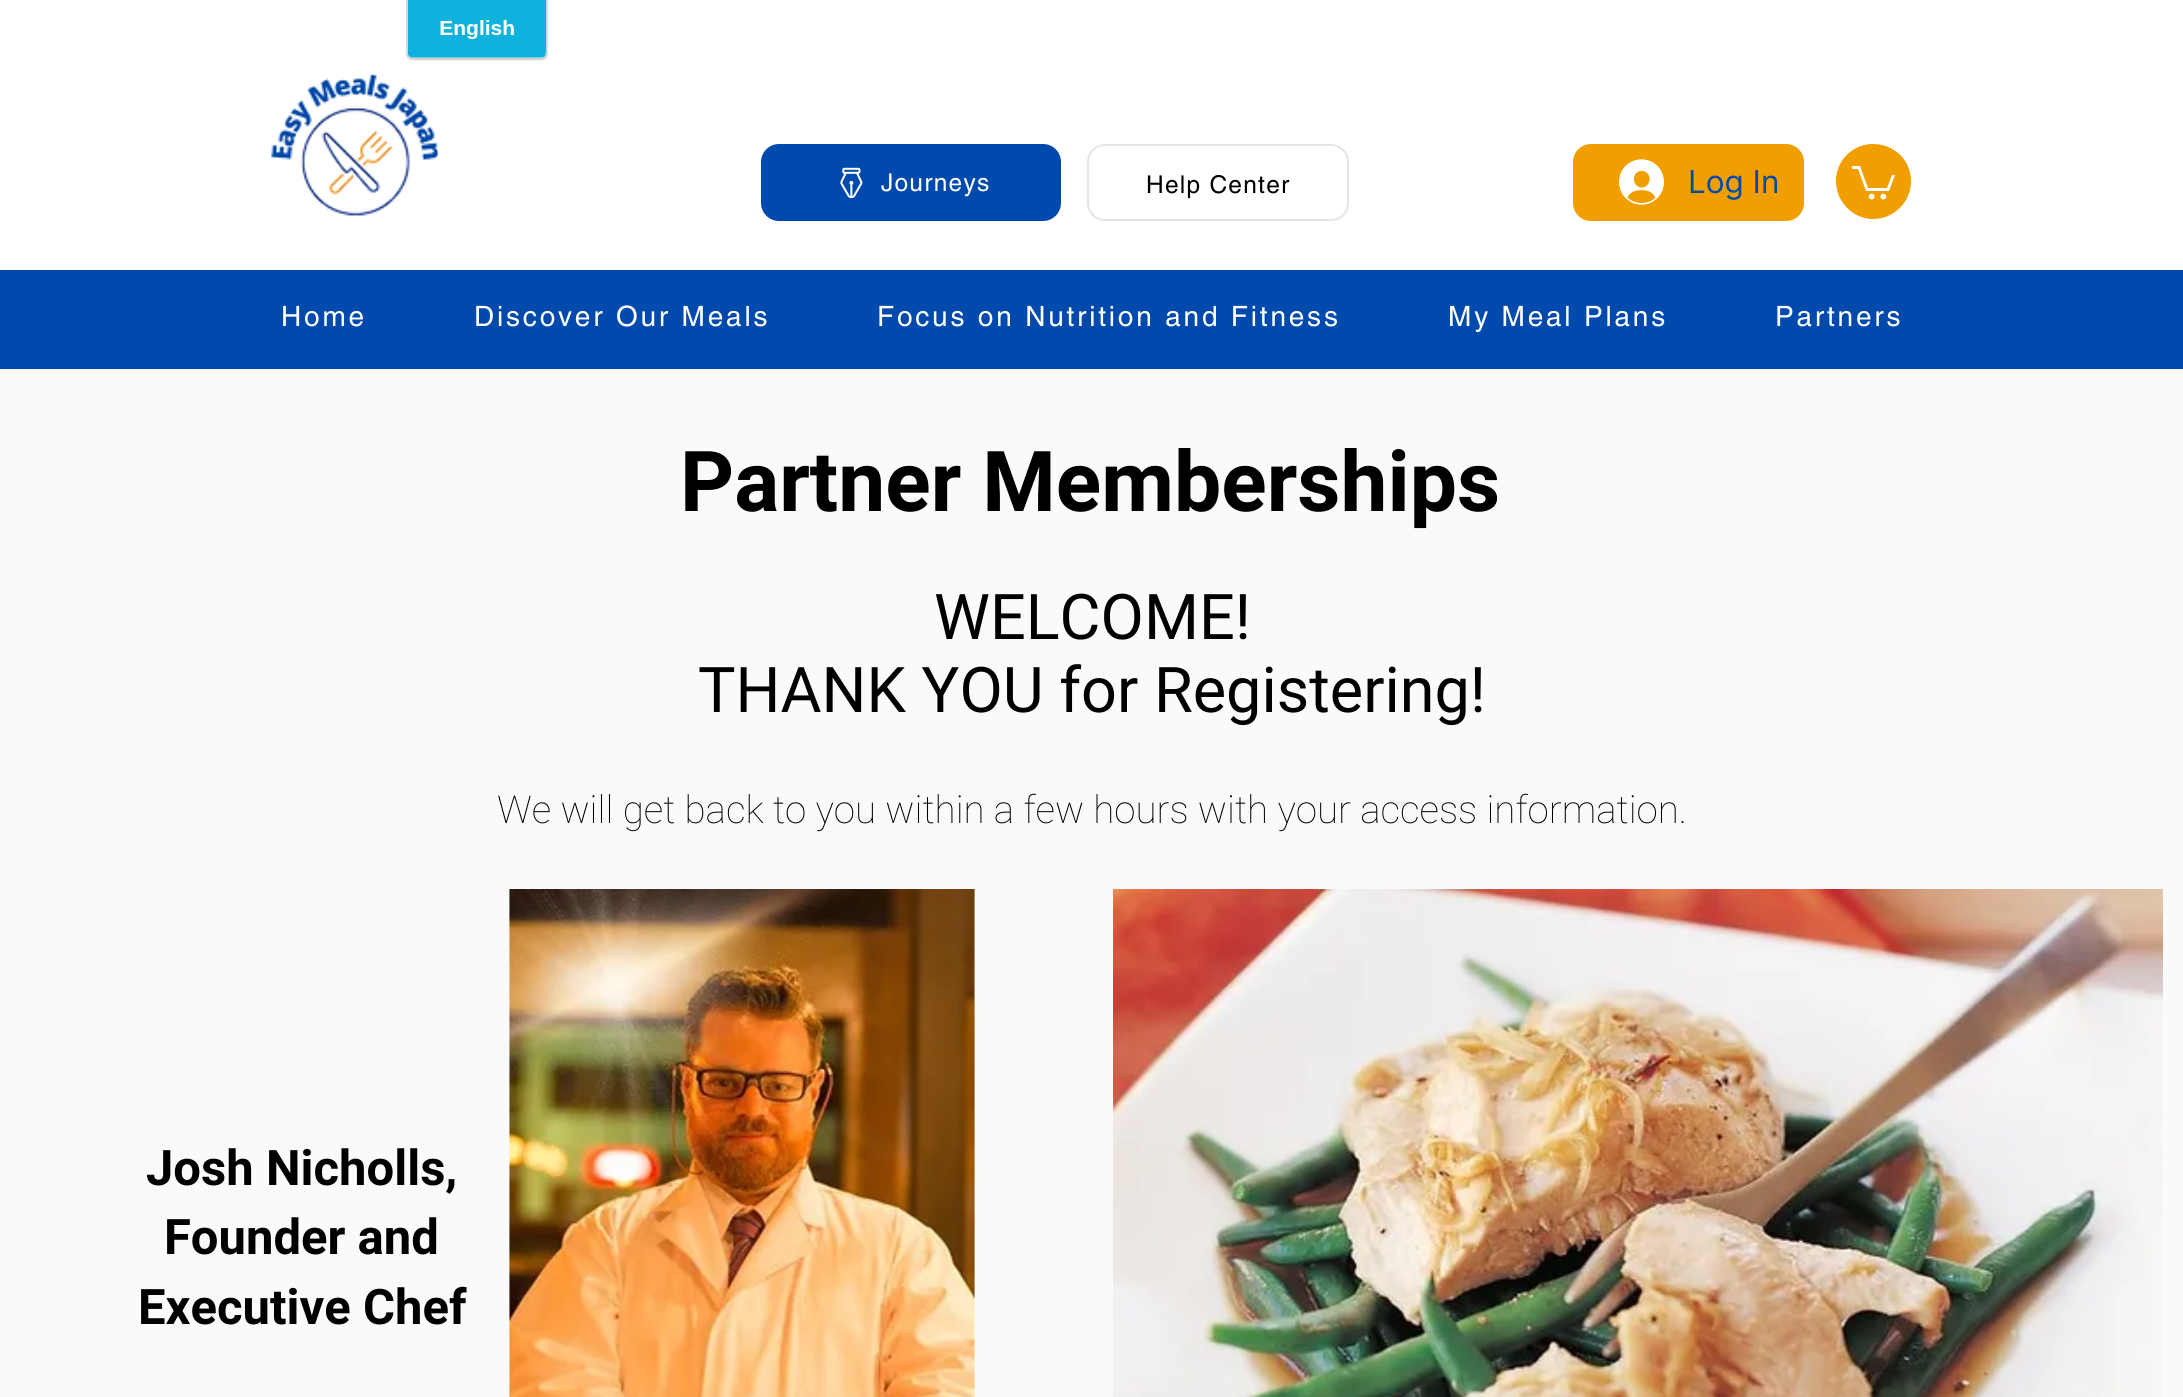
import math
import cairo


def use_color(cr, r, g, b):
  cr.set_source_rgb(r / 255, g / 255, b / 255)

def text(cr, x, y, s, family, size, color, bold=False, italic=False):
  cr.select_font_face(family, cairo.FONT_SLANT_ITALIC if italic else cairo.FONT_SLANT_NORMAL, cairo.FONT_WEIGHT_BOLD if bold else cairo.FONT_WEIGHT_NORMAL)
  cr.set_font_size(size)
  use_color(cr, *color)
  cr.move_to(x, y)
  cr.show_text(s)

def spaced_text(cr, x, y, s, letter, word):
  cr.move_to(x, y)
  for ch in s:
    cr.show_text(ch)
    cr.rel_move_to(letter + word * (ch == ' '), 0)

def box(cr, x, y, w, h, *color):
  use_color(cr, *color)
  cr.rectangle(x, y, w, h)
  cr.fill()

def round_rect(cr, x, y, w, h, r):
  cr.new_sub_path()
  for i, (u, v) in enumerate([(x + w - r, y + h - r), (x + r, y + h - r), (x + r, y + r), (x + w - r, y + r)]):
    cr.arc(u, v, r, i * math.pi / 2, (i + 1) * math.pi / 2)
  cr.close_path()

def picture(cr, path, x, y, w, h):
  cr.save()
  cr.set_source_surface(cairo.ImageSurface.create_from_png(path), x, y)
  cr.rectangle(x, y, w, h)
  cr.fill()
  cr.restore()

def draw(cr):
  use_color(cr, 250, 250, 250)
  cr.paint()
  box(cr, 0, 0, 2183, 270, 255, 255, 255)
  picture(cr, "img_01.png", 406, 0, 142, 61)
  picture(cr, "img_02.png", 270, 73, 170, 143)
  use_color(cr, 0, 74, 173)
  round_rect(cr, 761, 144, 300, 77, 18)
  cr.fill()
  picture(cr, "img_03.png", 840, 167, 23, 31)
  round_rect(cr, 1088, 145, 260, 75, 17)
  use_color(cr, 229, 229, 229)
  cr.stroke()
  use_color(cr, 241, 158, 0)
  round_rect(cr, 1573, 144, 231, 77, 18)
  cr.fill()
  picture(cr, "img_04.png", 1619, 159, 45, 46)
  cr.new_path()
  cr.move_to(1911, 181)
  cr.curve_to(1911, 202, 1894, 219, 1873, 219)
  cr.curve_to(1853, 219, 1836, 202, 1836, 181)
  cr.curve_to(1836, 160, 1853, 144, 1873, 144)
  cr.curve_to(1894, 144, 1911, 160, 1911, 181)
  cr.close_path()
  cr.fill()
  use_color(cr, 255, 255, 255)
  cr.new_path()
  cr.move_to(1895, 175)
  cr.line_to(1889, 191)
  cr.line_to(1866, 191)
  cr.line_to(1858, 169)
  cr.line_to(1852, 169)
  cr.line_to(1852, 166)
  cr.line_to(1860, 166)
  cr.line_to(1868, 188)
  cr.line_to(1887, 188)
  cr.line_to(1892, 175)
  cr.fill()
  cr.arc(1883.3, 196.6, 2.9, 0, 2 * math.pi)
  cr.fill()
  cr.arc(1871.6, 196.6, 2.9, 0, 2 * math.pi)
  cr.fill()
  box(cr, 0, 270, 2183, 99, 0, 74, 173)
  picture(cr, "img_05.png", 509, 889, 466, 508)
  picture(cr, "img_06.png", 1113, 889, 1050, 508)
  cr.select_font_face("helvetica")
  cr.set_font_size(24.5)
  use_color(cr, 255, 255, 255)
  spaced_text(cr, 881, 191, "Journeys", 1.25, 0)
  use_color(cr, 0, 0, 0)
  spaced_text(cr, 1146, 193, "Help Center", 1.25, 0)
  text(cr, 1688, 193, "Log In", "Inter", 31.5, (0, 74, 173))
  cr.select_font_face("helvetica")
  cr.set_font_size(28)
  use_color(cr, 255, 255, 255)
  spaced_text(cr, 281, 326, "Home", 2.8, 0)
  spaced_text(cr, 474, 326, "Discover Our Meals", 2.8, 0)
  spaced_text(cr, 877, 326, "Focus on Nutrition and Fitness", 2.8, 0)
  spaced_text(cr, 1448, 326, "My Meal Plans", 2.8, 0)
  spaced_text(cr, 1775, 326, "Partners", 2.8, 0)
  text(cr, 680, 511, "Partner Memberships", "Roboto", 84, (0, 0, 0), bold=True)
  text(cr, 934, 639, "WELCOME!", "Roboto", 63, (0, 0, 0))
  text(cr, 698, 712, "THANK YOU for Registering!", "Roboto", 63, (0, 0, 0))
  text(cr, 497, 823, "We will get back to you within a few hours with your access information.", "Roboto Thin", 38.5, (0, 0, 0))
  text(cr, 146, 1185, "Josh Nicholls,", "Roboto", 49, (0, 0, 0), bold=True)
  text(cr, 164, 1254, "Founder and", "Roboto", 49, (0, 0, 0), bold=True)
  text(cr, 138, 1324, "Executive Chef", "Roboto", 49, (0, 0, 0), bold=True)


surface = cairo.ImageSurface(cairo.FORMAT_RGB24, 2183, 1397)
cr = cairo.Context(surface)
options = cairo.FontOptions()
options.set_hint_metrics(cairo.HINT_METRICS_OFF)
options.set_hint_style(cairo.HINT_STYLE_NONE)
cr.set_font_options(options)
cr.set_miter_limit(4)
draw(cr)
surface.write_to_png("out.png")
